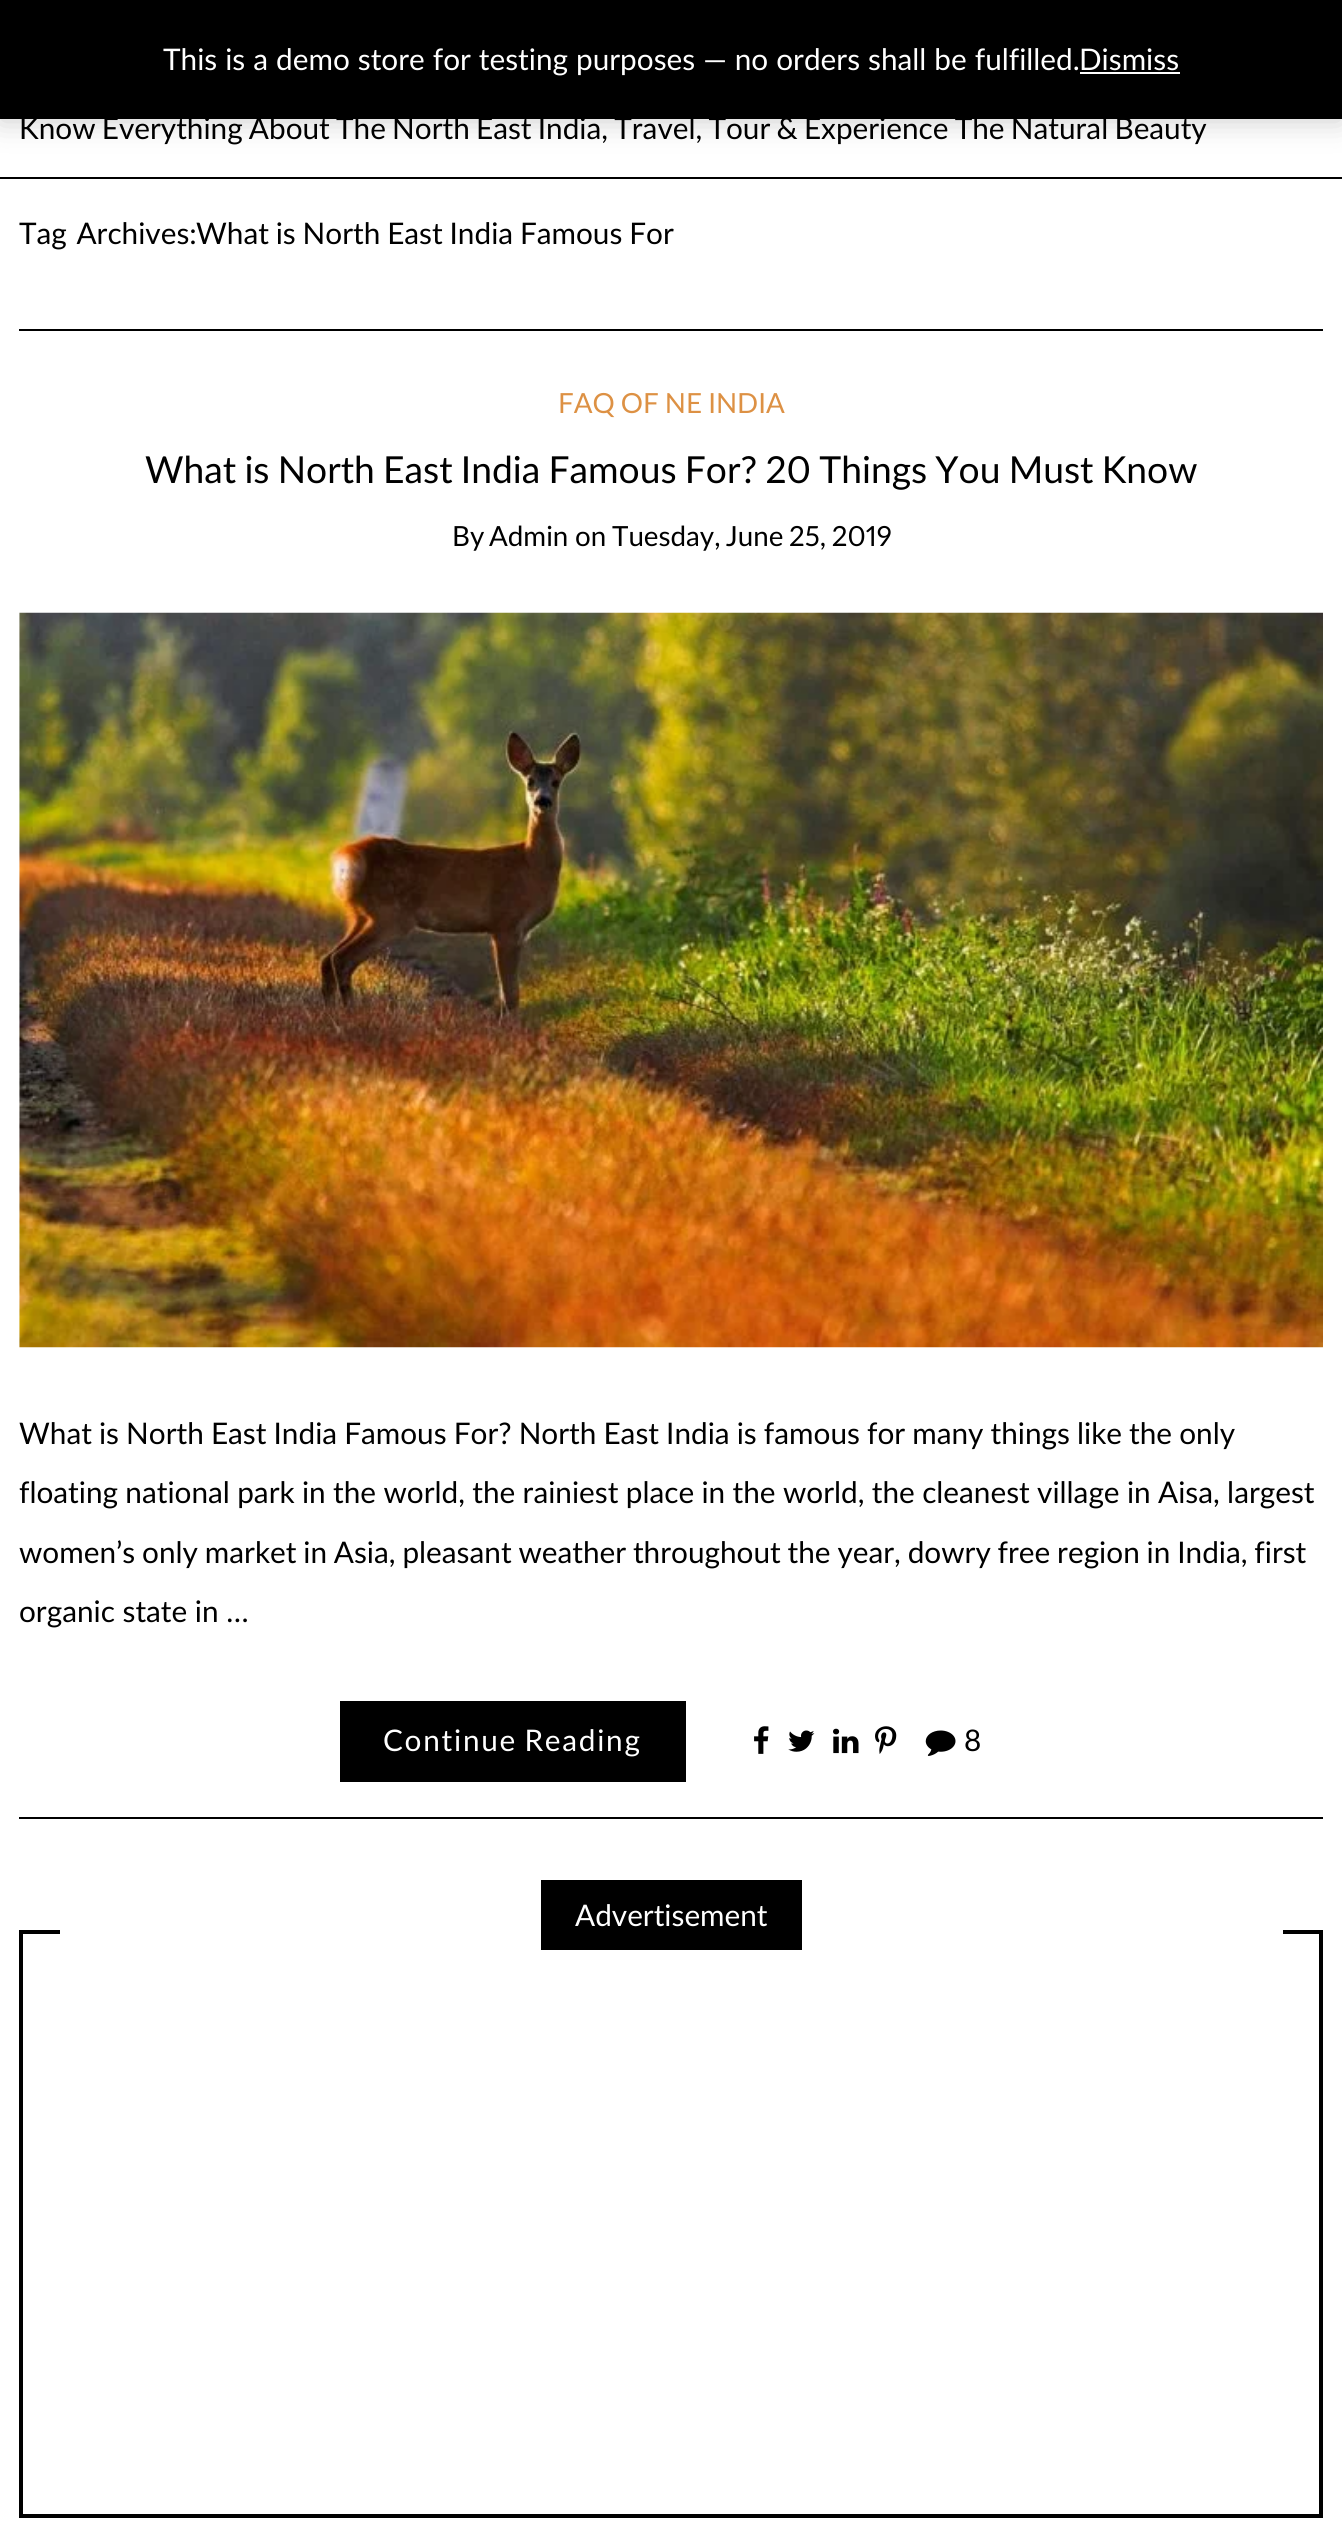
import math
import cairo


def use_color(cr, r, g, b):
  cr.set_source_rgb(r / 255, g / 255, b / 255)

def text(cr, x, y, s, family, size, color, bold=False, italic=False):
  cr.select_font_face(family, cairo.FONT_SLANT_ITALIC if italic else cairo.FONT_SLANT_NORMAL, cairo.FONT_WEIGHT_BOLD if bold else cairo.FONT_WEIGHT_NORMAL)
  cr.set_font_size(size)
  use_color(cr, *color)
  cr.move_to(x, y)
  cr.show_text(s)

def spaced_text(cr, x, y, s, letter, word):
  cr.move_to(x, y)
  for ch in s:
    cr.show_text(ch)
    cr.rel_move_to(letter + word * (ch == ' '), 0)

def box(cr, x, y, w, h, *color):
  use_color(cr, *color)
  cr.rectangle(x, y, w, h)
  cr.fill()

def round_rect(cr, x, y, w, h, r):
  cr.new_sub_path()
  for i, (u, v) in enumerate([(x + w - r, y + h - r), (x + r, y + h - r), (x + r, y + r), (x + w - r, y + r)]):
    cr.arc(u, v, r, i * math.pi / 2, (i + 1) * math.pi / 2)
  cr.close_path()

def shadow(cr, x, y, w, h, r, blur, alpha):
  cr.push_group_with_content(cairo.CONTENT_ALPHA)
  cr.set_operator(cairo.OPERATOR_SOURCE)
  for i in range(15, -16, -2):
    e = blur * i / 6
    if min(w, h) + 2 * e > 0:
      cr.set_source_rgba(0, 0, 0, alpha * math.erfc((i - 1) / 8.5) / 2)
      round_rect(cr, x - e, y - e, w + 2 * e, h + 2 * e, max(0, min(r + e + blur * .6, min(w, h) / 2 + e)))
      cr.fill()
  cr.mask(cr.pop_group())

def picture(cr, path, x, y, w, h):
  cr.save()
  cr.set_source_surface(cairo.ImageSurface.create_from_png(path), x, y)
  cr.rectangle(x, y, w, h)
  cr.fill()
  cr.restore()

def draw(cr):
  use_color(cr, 255, 255, 255)
  cr.paint()
  use_color(cr, 0, 0, 0)
  shadow(cr, 0, 2, 1342, 119, 0, 15, 0.2)
  box(cr, 0, 0, 1342, 119, 0, 0, 0)
  box(cr, 1080, 72, 100, 2, 255, 255, 255)
  box(cr, 0, 177, 1342, 2, 0, 0, 0)
  box(cr, 19, 329, 1304, 2, 0, 0, 0)
  picture(cr, "img_01.png", 19, 612, 1304, 736)
  box(cr, 340, 1701, 346, 81, 0, 0, 0)
  picture(cr, "img_02.png", 754, 1726, 15, 28)
  picture(cr, "img_03.png", 788, 1730, 27, 22)
  picture(cr, "img_04.png", 833, 1728, 26, 26)
  picture(cr, "img_05.png", 875, 1726, 22, 28)
  picture(cr, "img_06.png", 925, 1730, 31, 26)
  box(cr, 19, 1817, 1304, 2, 0, 0, 0)
  cr.rectangle(21, 1932, 1300, 584)
  cr.set_line_width(4)
  cr.stroke()
  box(cr, 60, 1930, 1223, 4, 255, 255, 255)
  box(cr, 541, 1880, 261, 70, 0, 0, 0)
  cr.select_font_face("Lato")
  cr.set_font_size(29.75)
  use_color(cr, 255, 255, 255)
  spaced_text(cr, 163, 70, "This is a demo store for testing purposes — no orders shall be fulfilled.", 0, 0.4)
  text(cr, 1079, 70, "Dismiss", "Lato", 29.75, (255, 255, 255))
  use_color(cr, 0, 0, 0)
  spaced_text(cr, 19, 139, "Know Everything About The North East India, Travel, Tour & Experience The Natural Beauty", 0, -1.4)
  spaced_text(cr, 19, 244, "Tag Archives:", 0, 2)
  spaced_text(cr, 196, 244, "What is North East India Famous For", 0, -0.75)
  cr.set_font_size(27.75)
  use_color(cr, 221, 145, 68)
  spaced_text(cr, 558, 413, "FAQ OF NE INDIA", 0, -1)
  cr.select_font_face("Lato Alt")
  cr.set_font_size(37.2)
  use_color(cr, 0, 0, 0)
  spaced_text(cr, 145, 483, "What is North East India Famous For? 20 Things You Must Know", 0, -1.25)
  text(cr, 452, 546, "By", "Lato", 27.75, (0, 0, 0))
  text(cr, 489, 546, "Admin", "Lato", 27.75, (0, 0, 0))
  text(cr, 575, 546, "on", "Lato", 27.75, (0, 0, 0))
  cr.select_font_face("Lato Alt")
  spaced_text(cr, 612, 546, "Tuesday, June 25, 2019", 0, -1.5)
  cr.select_font_face("Lato")
  cr.set_font_size(29.75)
  spaced_text(cr, 19, 1444, "What is North East India Famous For? North East India is famous for many things like the only", 0, -0.5)
  spaced_text(cr, 19, 1503, "floating national park in the world, the rainiest place in the world, the cleanest village in Aisa, largest", 0, -0.25)
  spaced_text(cr, 19, 1563, "women’s only market in Asia, pleasant weather throughout the year, dowry free region in India, first", 0, -0.75)
  text(cr, 19, 1622, "organic state in …", "Lato", 29.75, (0, 0, 0))
  use_color(cr, 255, 255, 255)
  spaced_text(cr, 383, 1751, "Continue Reading", 1.75, -2)
  text(cr, 964, 1751, "8", "Lato", 29.75, (0, 0, 0))
  text(cr, 575, 1926, "Advertisement", "Lato", 29.75, (255, 255, 255))


surface = cairo.ImageSurface(cairo.FORMAT_RGB24, 1342, 2533)
cr = cairo.Context(surface)
options = cairo.FontOptions()
options.set_hint_metrics(cairo.HINT_METRICS_OFF)
options.set_hint_style(cairo.HINT_STYLE_NONE)
cr.set_font_options(options)
cr.set_miter_limit(4)
draw(cr)
surface.write_to_png("out.png")
